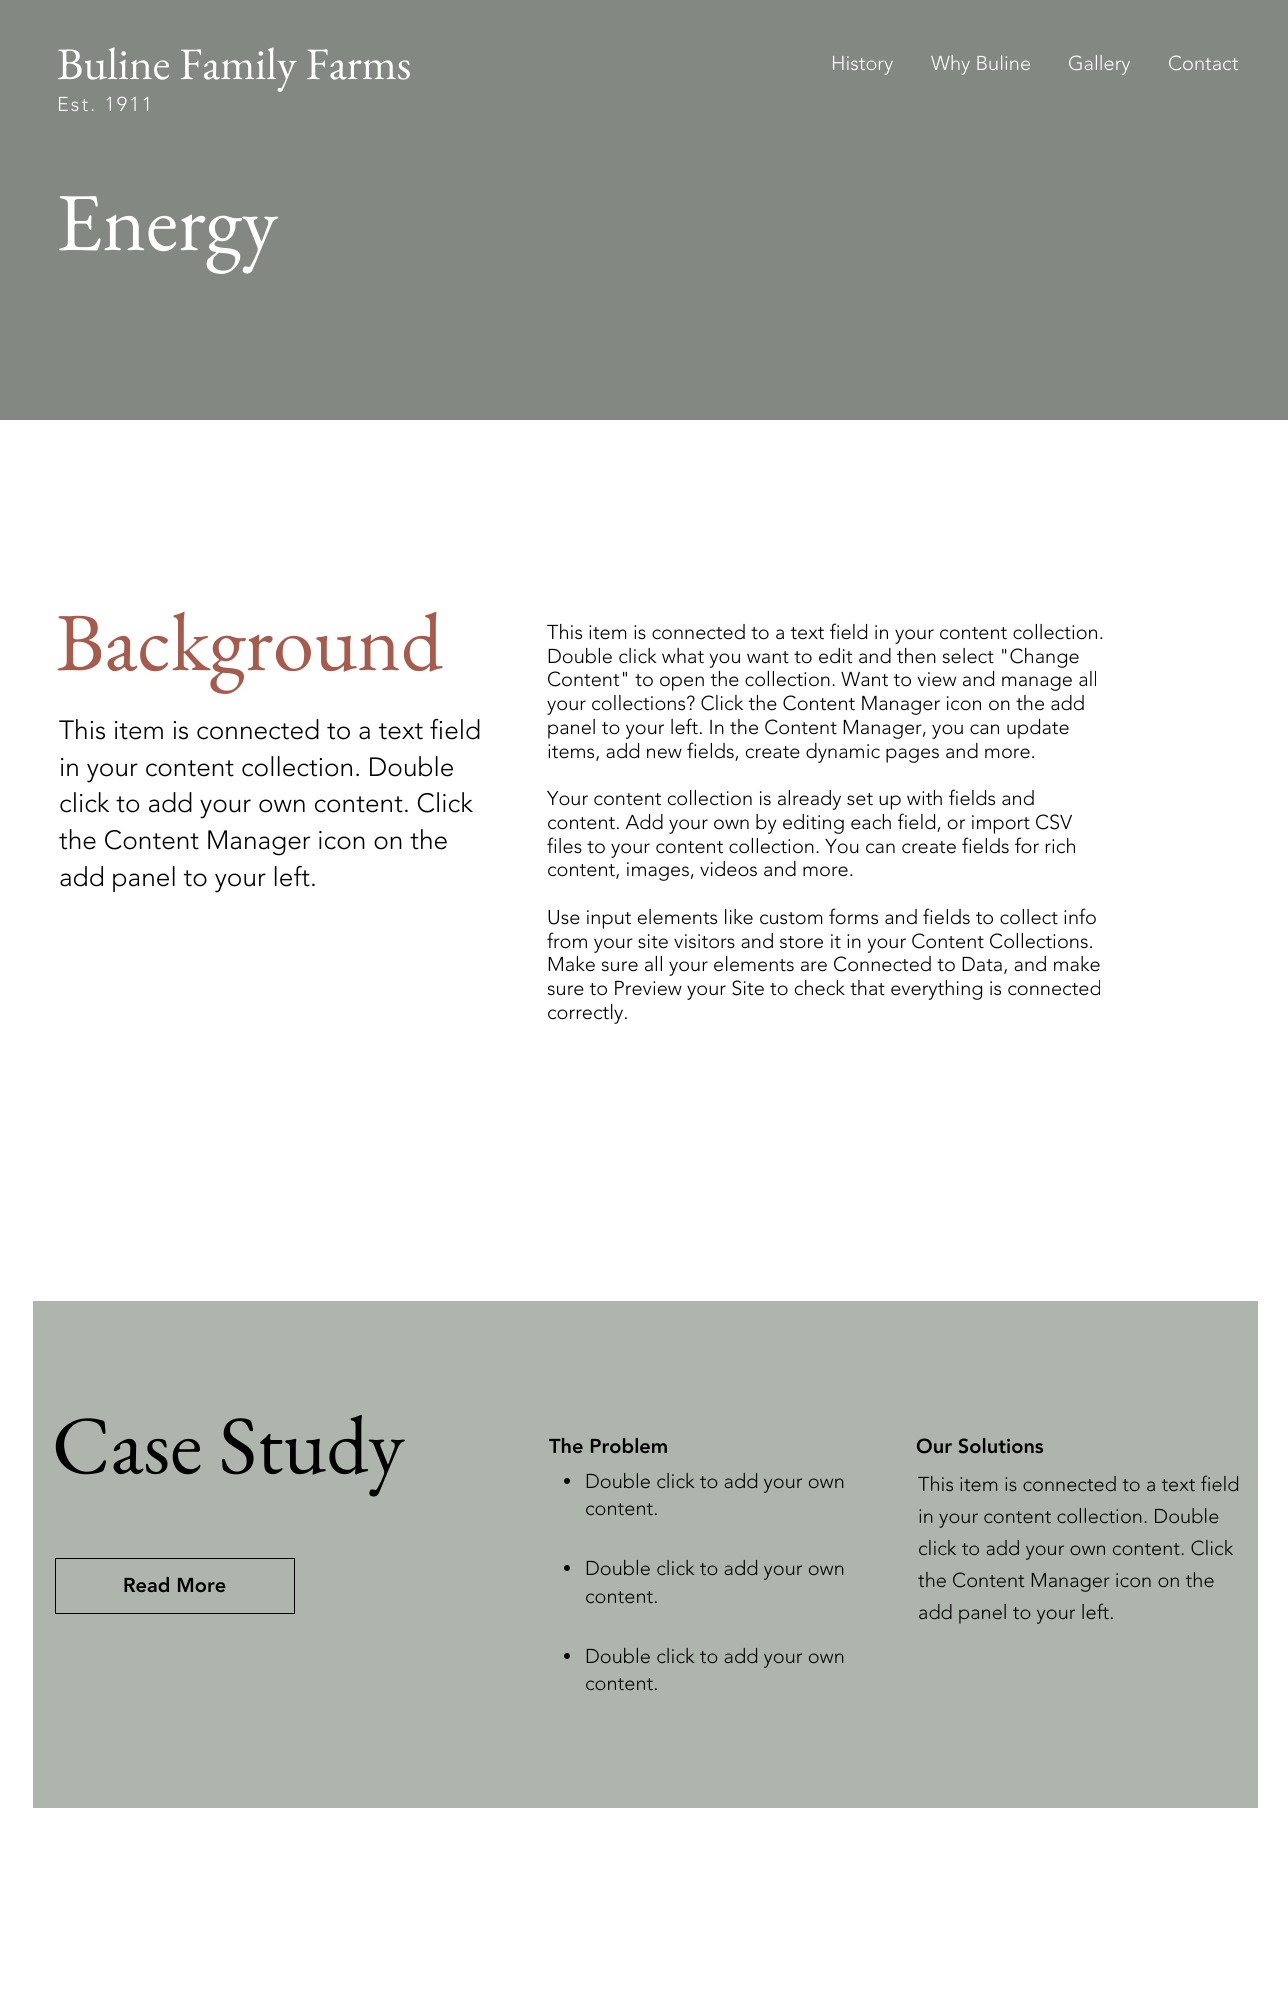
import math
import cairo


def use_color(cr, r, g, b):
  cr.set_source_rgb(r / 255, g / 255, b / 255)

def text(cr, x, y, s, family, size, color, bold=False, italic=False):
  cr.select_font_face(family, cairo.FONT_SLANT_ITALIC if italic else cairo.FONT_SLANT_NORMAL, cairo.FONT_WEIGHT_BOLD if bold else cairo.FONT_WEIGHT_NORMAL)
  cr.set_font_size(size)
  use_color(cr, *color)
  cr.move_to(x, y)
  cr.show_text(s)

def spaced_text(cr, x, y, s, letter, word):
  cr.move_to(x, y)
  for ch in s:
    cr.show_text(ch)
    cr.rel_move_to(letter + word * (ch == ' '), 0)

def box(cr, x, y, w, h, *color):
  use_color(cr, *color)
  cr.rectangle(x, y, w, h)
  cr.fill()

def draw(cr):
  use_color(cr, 255, 255, 255)
  cr.paint()
  box(cr, 0, 0, 1288, 420, 131, 136, 130)
  box(cr, 33, 1301, 1225, 507, 174, 181, 173)
  cr.rectangle(55.5, 1558.5, 239, 55)
  use_color(cr, 0, 0, 0)
  cr.set_line_width(1)
  cr.stroke()
  cr.arc(567, 1481, 3, 0, 2 * math.pi)
  cr.fill()
  cr.arc(567, 1568, 3, 0, 2 * math.pi)
  cr.fill()
  cr.arc(567, 1656, 3, 0, 2 * math.pi)
  cr.fill()
  text(cr, 57, 79, "Buline Family Farms", "EB Garamond", 45, (255, 255, 255))
  cr.select_font_face("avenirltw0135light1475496 Light")
  cr.set_font_size(20)
  spaced_text(cr, 57, 111, "Est. 1911", 2, 0)
  text(cr, 831, 70, "History", "avenirltw0135light1475496 Light", 20, (255, 255, 255))
  text(cr, 931, 70, "Why Buline", "avenirltw0135light1475496 Light", 20, (255, 255, 255))
  text(cr, 1068, 70, "Gallery", "avenirltw0135light1475496 Light", 20, (255, 255, 255))
  text(cr, 1168, 70, "Contact", "avenirltw0135light1475496 Light", 20, (255, 255, 255))
  text(cr, 56, 250, "Energy", "EB Garamond", 82.5, (255, 255, 255))
  text(cr, 56, 670, "Background", "EB Garamond", 82.5, (166, 91, 76))
  text(cr, 59, 739, "This item is connected to a text field", "avenirltw0135light1475496 Light", 26.25, (0, 0, 0))
  text(cr, 59, 776, "in your content collection. Double", "avenirltw0135light1475496 Light", 26.25, (0, 0, 0))
  text(cr, 59, 812, "click to add your own content. Click", "avenirltw0135light1475496 Light", 26.25, (0, 0, 0))
  text(cr, 59, 849, "the Content Manager icon on the", "avenirltw0135light1475496 Light", 26.25, (0, 0, 0))
  text(cr, 59, 886, "add panel to your left.", "avenirltw0135light1475496 Light", 26.25, (0, 0, 0))
  text(cr, 547, 639, "This item is connected to a text field in your content collection.", "avenirltw0135light1475496 Light", 20, (0, 0, 0))
  text(cr, 547, 663, "Double click what you want to edit and then select \"Change", "avenirltw0135light1475496 Light", 20, (0, 0, 0))
  text(cr, 547, 686, "Content\" to open the collection. Want to view and manage all", "avenirltw0135light1475496 Light", 20, (0, 0, 0))
  text(cr, 547, 710, "your collections? Click the Content Manager icon on the add", "avenirltw0135light1475496 Light", 20, (0, 0, 0))
  text(cr, 547, 734, "panel to your left. In the Content Manager, you can update", "avenirltw0135light1475496 Light", 20, (0, 0, 0))
  text(cr, 547, 758, "items, add new fields, create dynamic pages and more.", "avenirltw0135light1475496 Light", 20, (0, 0, 0))
  text(cr, 547, 805, "Your content collection is already set up with fields and", "avenirltw0135light1475496 Light", 20, (0, 0, 0))
  text(cr, 547, 829, "content. Add your own by editing each field, or import CSV", "avenirltw0135light1475496 Light", 20, (0, 0, 0))
  text(cr, 547, 853, "files to your content collection. You can create fields for rich", "avenirltw0135light1475496 Light", 20, (0, 0, 0))
  text(cr, 547, 876, "content, images, videos and more.", "avenirltw0135light1475496 Light", 20, (0, 0, 0))
  text(cr, 547, 924, "Use input elements like custom forms and fields to collect info", "avenirltw0135light1475496 Light", 20, (0, 0, 0))
  text(cr, 547, 948, "from your site visitors and store it in your Content Collections.", "avenirltw0135light1475496 Light", 20, (0, 0, 0))
  text(cr, 547, 971, "Make sure all your elements are Connected to Data, and make", "avenirltw0135light1475496 Light", 20, (0, 0, 0))
  text(cr, 547, 995, "sure to Preview your Site to check that everything is connected", "avenirltw0135light1475496 Light", 20, (0, 0, 0))
  text(cr, 547, 1019, "correctly.", "avenirltw0135light1475496 Light", 20, (0, 0, 0))
  text(cr, 52, 1473, "Case Study", "EB Garamond", 82.5, (0, 0, 0))
  text(cr, 123, 1592, "Read More", "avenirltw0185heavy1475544 Black", 20, (0, 0, 0))
  text(cr, 549, 1453, "The Problem", "avenirltw0185heavy1475544 Black", 20, (0, 0, 0))
  text(cr, 585, 1488, "Double click to add your own", "avenirltw0135light1475496 Light", 20, (0, 0, 0))
  text(cr, 585, 1515, "content.", "avenirltw0135light1475496 Light", 20, (0, 0, 0))
  text(cr, 585, 1575, "Double click to add your own", "avenirltw0135light1475496 Light", 20, (0, 0, 0))
  text(cr, 585, 1603, "content.", "avenirltw0135light1475496 Light", 20, (0, 0, 0))
  text(cr, 585, 1663, "Double click to add your own", "avenirltw0135light1475496 Light", 20, (0, 0, 0))
  text(cr, 585, 1690, "content.", "avenirltw0135light1475496 Light", 20, (0, 0, 0))
  text(cr, 916, 1453, "Our Solutions", "avenirltw0185heavy1475544 Black", 20, (0, 0, 0))
  text(cr, 918, 1491, "This item is connected to a text field", "avenirltw0135light1475496 Light", 20, (0, 0, 0))
  text(cr, 918, 1523, "in your content collection. Double", "avenirltw0135light1475496 Light", 20, (0, 0, 0))
  text(cr, 918, 1555, "click to add your own content. Click", "avenirltw0135light1475496 Light", 20, (0, 0, 0))
  text(cr, 918, 1587, "the Content Manager icon on the", "avenirltw0135light1475496 Light", 20, (0, 0, 0))
  text(cr, 918, 1619, "add panel to your left.", "avenirltw0135light1475496 Light", 20, (0, 0, 0))


surface = cairo.ImageSurface(cairo.FORMAT_RGB24, 1288, 1997)
cr = cairo.Context(surface)
options = cairo.FontOptions()
options.set_hint_metrics(cairo.HINT_METRICS_OFF)
options.set_hint_style(cairo.HINT_STYLE_NONE)
cr.set_font_options(options)
cr.set_miter_limit(4)
draw(cr)
surface.write_to_png("out.png")
